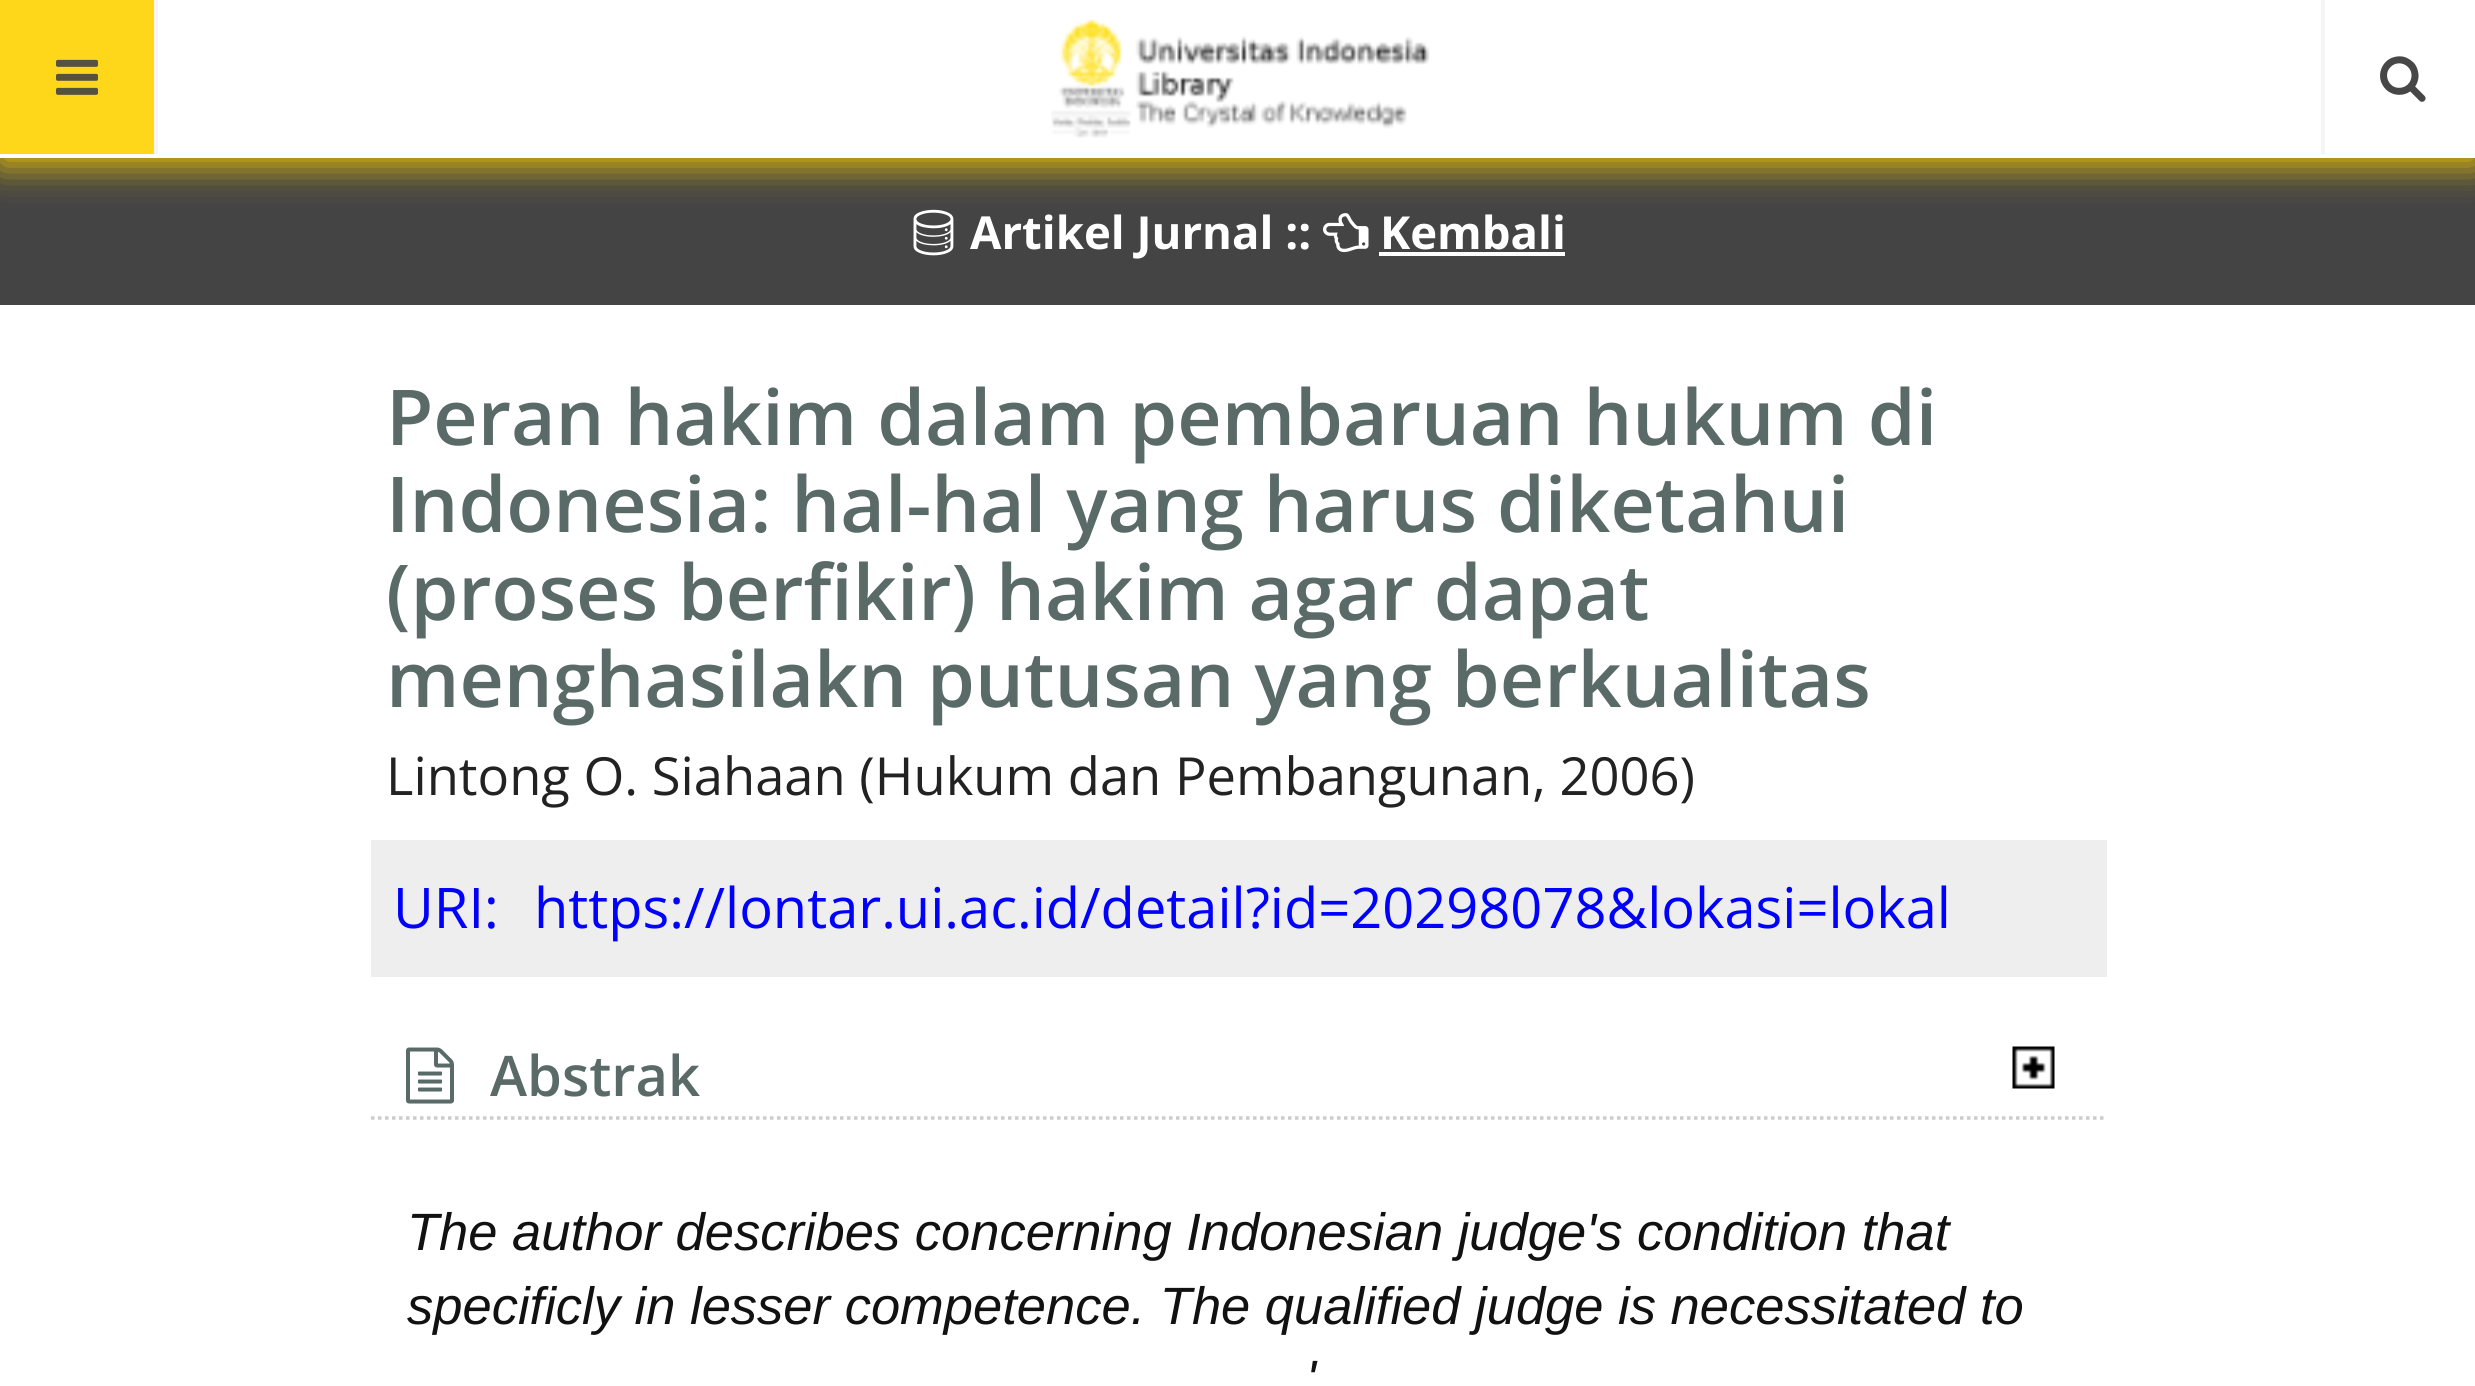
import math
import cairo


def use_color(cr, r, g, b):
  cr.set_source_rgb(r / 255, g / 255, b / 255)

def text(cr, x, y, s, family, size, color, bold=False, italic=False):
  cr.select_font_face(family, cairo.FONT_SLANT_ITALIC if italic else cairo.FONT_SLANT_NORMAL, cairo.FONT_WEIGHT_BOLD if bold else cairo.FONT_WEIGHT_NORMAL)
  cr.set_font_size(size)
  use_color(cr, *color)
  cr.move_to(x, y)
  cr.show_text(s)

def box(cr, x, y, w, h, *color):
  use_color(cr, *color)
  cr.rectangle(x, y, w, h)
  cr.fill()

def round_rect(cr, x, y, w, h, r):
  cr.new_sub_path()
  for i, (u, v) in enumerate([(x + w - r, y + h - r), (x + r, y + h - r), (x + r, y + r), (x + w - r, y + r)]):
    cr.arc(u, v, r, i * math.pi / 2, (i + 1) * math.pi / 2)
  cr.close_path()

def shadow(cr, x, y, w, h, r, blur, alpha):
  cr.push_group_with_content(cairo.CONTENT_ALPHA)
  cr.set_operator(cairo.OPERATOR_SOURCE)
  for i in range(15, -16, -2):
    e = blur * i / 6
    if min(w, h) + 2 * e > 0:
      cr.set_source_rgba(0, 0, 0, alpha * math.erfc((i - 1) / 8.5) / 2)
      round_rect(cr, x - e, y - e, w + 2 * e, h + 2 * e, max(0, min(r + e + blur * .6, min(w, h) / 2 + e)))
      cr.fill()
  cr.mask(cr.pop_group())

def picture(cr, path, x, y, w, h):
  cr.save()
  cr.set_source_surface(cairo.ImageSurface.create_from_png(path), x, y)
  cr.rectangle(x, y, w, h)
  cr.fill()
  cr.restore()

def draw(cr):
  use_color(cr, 255, 255, 255)
  cr.paint()
  box(cr, 0, 158, 2475, 147, 68, 68, 68)
  picture(cr, "img_04.png", 913, 209, 41, 47)
  picture(cr, "img_05.png", 1323, 213, 46, 40)
  use_color(cr, 255, 210, 0)
  shadow(cr, 0, 7, 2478, 158, 0, 17.5, 0.9)
  box(cr, 0, 0, 2475, 158, 255, 255, 255)
  box(cr, 0, 0, 154, 154, 255, 215, 26)
  box(cr, 154, 0, 4, 154, 245, 245, 245)
  picture(cr, "img_01.png", 56, 59, 42, 36)
  picture(cr, "img_02.png", 1051, 19, 379, 119)
  box(cr, 2321, 0, 4, 154, 245, 245, 245)
  picture(cr, "img_03.png", 2380, 56, 46, 46)
  box(cr, 1379, 252, 186, 4, 255, 255, 255)
  box(cr, 371, 840, 1736, 137, 238, 238, 238)
  cr.new_path()
  cr.move_to(371, 1118)
  cr.line_to(2107, 1118)
  use_color(cr, 204, 204, 204)
  cr.set_line_width(3.5)
  cr.set_dash([3.5, 3.5])
  cr.stroke()
  picture(cr, "img_06.png", 406, 1047, 48, 57)
  picture(cr, "img_07.png", 2012, 1046, 43, 43)
  text(cr, 970, 249, "Artikel Jurnal ::", "Open Sans", 45.5, (255, 255, 255), bold=True)
  text(cr, 1380, 249, "Kembali", "Open Sans", 45.5, (255, 255, 255), bold=True)
  text(cr, 386, 445, "Peran hakim dalam pembaruan hukum di", "Open Sans SemiBold", 77, (89, 106, 103))
  text(cr, 386, 532, "Indonesia: hal-hal yang harus diketahui", "Open Sans SemiBold", 77, (89, 106, 103))
  text(cr, 386, 620, "(proses berfikir) hakim agar dapat", "Open Sans SemiBold", 77, (89, 106, 103))
  text(cr, 386, 707, "menghasilakn putusan yang berkualitas", "Open Sans SemiBold", 77, (89, 106, 103))
  text(cr, 386, 795, "Lintong O. Siahaan (Hukum dan Pembangunan, 2006)", "Open Sans", 52.5, (34, 34, 34))
  text(cr, 393, 928, "URI:", "Open Sans", 56, (0, 0, 255))
  text(cr, 534, 928, "https://lontar.ui.ac.id/detail?id=20298078&lokasi=lokal", "Open Sans", 56, (0, 0, 255))
  text(cr, 490, 1096, "Abstrak", "Open Sans SemiBold", 56, (89, 106, 103))
  text(cr, 407, 1250, "The author describes concerning Indonesian judge's condition that", "Liberation Sans", 52.5, (17, 17, 17), italic=True)
  text(cr, 407, 1324, "specificly in lesser competence. The qualified judge is necessitated to", "Liberation Sans", 52.5, (17, 17, 17), italic=True)
  text(cr, 1306, 1397, "'", "Liberation Sans", 52.5, (17, 17, 17), italic=True)


surface = cairo.ImageSurface(cairo.FORMAT_RGB24, 2475, 1386)
cr = cairo.Context(surface)
options = cairo.FontOptions()
options.set_hint_metrics(cairo.HINT_METRICS_OFF)
options.set_hint_style(cairo.HINT_STYLE_NONE)
cr.set_font_options(options)
cr.set_miter_limit(4)
draw(cr)
surface.write_to_png("out.png")
